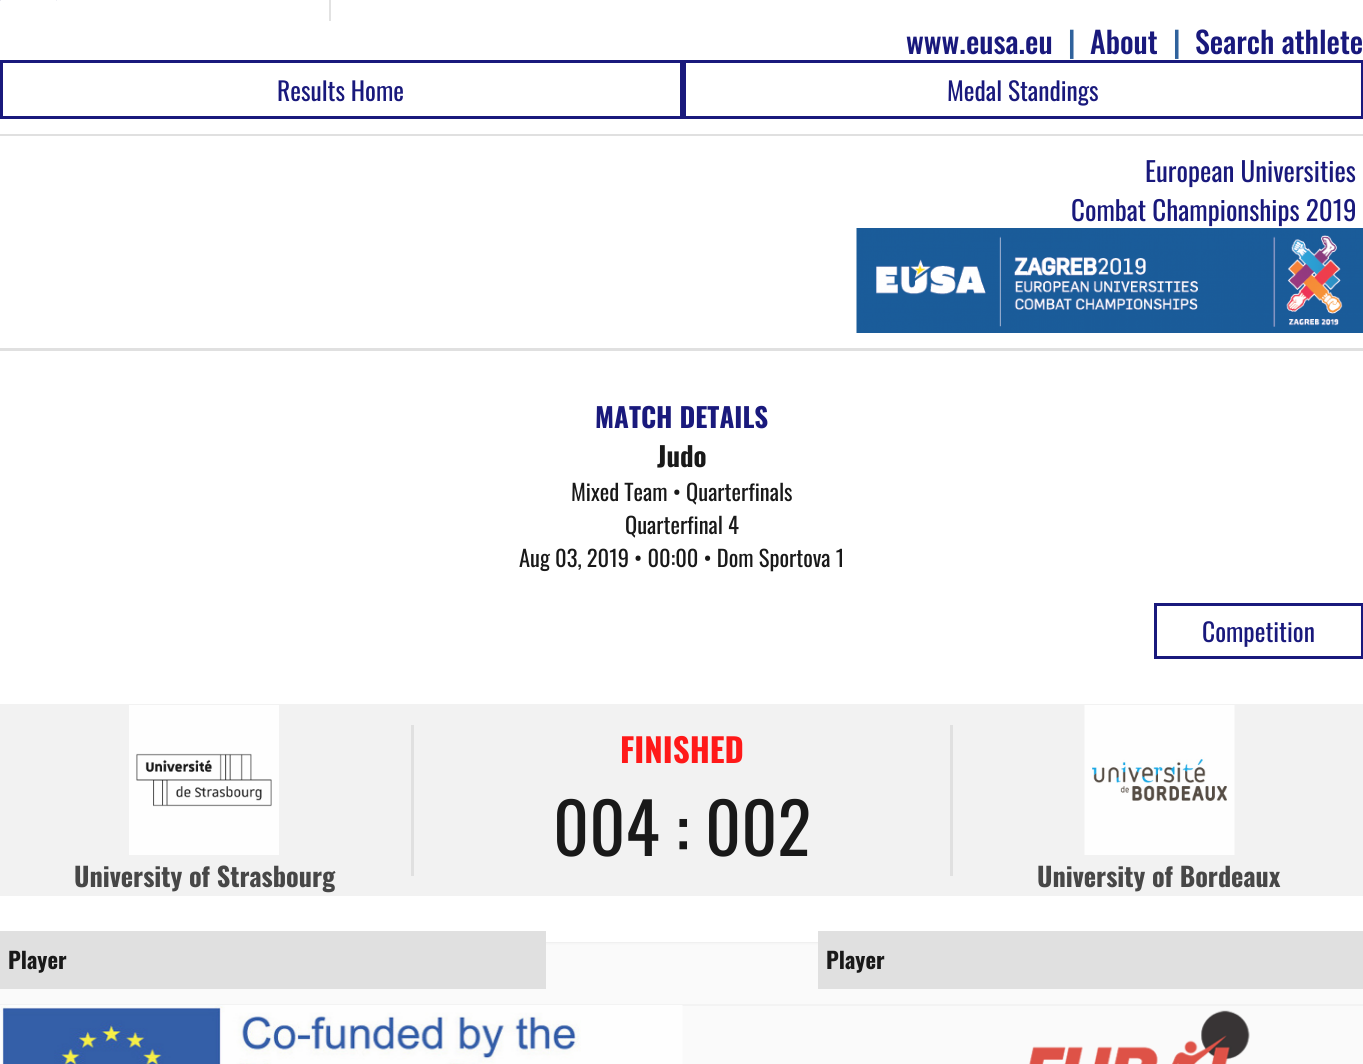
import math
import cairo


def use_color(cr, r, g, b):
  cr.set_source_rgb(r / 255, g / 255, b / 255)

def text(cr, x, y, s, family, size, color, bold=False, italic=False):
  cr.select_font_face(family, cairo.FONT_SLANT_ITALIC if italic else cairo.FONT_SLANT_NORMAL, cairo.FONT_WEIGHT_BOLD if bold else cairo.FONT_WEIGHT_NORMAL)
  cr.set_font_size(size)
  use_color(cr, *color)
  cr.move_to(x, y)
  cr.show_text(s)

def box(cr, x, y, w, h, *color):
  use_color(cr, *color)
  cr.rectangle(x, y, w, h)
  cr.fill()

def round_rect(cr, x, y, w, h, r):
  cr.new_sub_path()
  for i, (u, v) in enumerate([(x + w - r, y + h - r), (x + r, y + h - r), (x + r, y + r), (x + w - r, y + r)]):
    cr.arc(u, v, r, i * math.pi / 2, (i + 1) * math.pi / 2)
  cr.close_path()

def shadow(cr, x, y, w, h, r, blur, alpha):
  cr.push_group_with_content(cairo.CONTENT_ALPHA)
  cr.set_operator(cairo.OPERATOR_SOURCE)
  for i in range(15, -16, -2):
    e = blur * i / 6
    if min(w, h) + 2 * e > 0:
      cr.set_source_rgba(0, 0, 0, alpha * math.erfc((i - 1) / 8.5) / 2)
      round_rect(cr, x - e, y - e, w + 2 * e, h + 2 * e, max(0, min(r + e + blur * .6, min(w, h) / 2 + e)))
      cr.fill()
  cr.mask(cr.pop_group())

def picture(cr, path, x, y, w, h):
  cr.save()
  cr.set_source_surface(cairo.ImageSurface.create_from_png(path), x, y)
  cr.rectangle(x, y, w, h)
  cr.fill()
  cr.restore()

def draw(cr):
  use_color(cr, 250, 250, 250)
  cr.paint()
  use_color(cr, 224, 224, 224)
  shadow(cr, 0, -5, 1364, 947, 0, 1.5, 1)
  box(cr, 0, 0, 1363, 942, 255, 255, 255)
  box(cr, 0, 134, 1363, 2, 224, 224, 224)
  box(cr, 329, 0, 2, 21, 226, 226, 226)
  picture(cr, "img_01.png", 0, 0, 57, 1)
  cr.rectangle(1.5, 61.5, 680, 56)
  use_color(cr, 25, 25, 124)
  cr.set_line_width(3)
  cr.stroke()
  cr.rectangle(684.5, 61.5, 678, 56)
  cr.stroke()
  box(cr, 0, 348, 1363, 3, 224, 224, 224)
  picture(cr, "img_02.png", 856, 228, 507, 105)
  cr.rectangle(1155.5, 604.5, 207, 53)
  use_color(cr, 25, 25, 124)
  cr.stroke()
  box(cr, 0, 704, 1363, 192, 242, 242, 242)
  box(cr, 950, 725, 3, 151, 224, 224, 224)
  box(cr, 411, 725, 3, 151, 224, 224, 224)
  picture(cr, "img_03.png", 129, 705, 150, 150)
  picture(cr, "img_04.png", 1084, 705, 151, 150)
  box(cr, 0, 931, 546, 58, 224, 224, 224)
  box(cr, 818, 931, 545, 58, 224, 224, 224)
  box(cr, 0, 1004, 1363, 2, 243, 243, 243)
  picture(cr, "img_05.png", 0, 1005, 683, 59)
  picture(cr, "img_06.png", 1029, 1010, 221, 54)
  text(cr, 906, 54, "www.eusa.eu", "Oswald Medium", 30, (25, 25, 124))
  text(cr, 1068, 54, "|", "Oswald Medium", 30, (48, 98, 156))
  text(cr, 1090, 54, "About", "Oswald Medium", 30, (25, 25, 124))
  text(cr, 1173, 54, "|", "Oswald Medium", 30, (48, 98, 156))
  text(cr, 1195, 54, "Search athlete", "Oswald Medium", 30, (25, 25, 124))
  text(cr, 277, 101, "Results Home", "Oswald", 25.5, (25, 25, 124))
  text(cr, 947, 101, "Medal Standings", "Oswald", 25.5, (25, 25, 124))
  text(cr, 1145, 182, "European Universities", "Oswald", 27, (25, 25, 124))
  text(cr, 1071, 221, "Combat Championships 2019", "Oswald", 27, (25, 25, 124))
  text(cr, 595, 428, "MATCH DETAILS", "Oswald", 27, (25, 25, 124), bold=True)
  text(cr, 657, 467, "Judo", "Oswald", 27, (25, 25, 25), bold=True)
  text(cr, 571, 501, "Mixed Team • Quarterfinals", "Oswald", 22.5, (25, 25, 25))
  text(cr, 625, 534, "Quarterfinal 4", "Oswald", 22.5, (25, 25, 25))
  text(cr, 519, 567, "Aug 03, 2019 • 00:00 • Dom Sportova 1", "Oswald", 22.5, (25, 25, 25))
  text(cr, 1202, 642, "Competition", "Oswald", 25.5, (25, 25, 124))
  text(cr, 620, 763, "FINISHED", "Oswald", 33, (255, 25, 25), bold=True)
  text(cr, 553, 856, "004 : 002", "Oswald", 70, (25, 25, 25))
  text(cr, 74, 887, "University of Strasbourg", "Oswald", 26.25, (71, 71, 71), bold=True)
  text(cr, 1037, 887, "University of Bordeaux", "Oswald", 26.25, (71, 71, 71), bold=True)
  text(cr, 8, 969, "Player", "Oswald", 22.5, (25, 25, 25), bold=True)
  text(cr, 826, 969, "Player", "Oswald", 22.5, (25, 25, 25), bold=True)


surface = cairo.ImageSurface(cairo.FORMAT_RGB24, 1363, 1064)
cr = cairo.Context(surface)
options = cairo.FontOptions()
options.set_hint_metrics(cairo.HINT_METRICS_OFF)
options.set_hint_style(cairo.HINT_STYLE_NONE)
cr.set_font_options(options)
cr.set_miter_limit(4)
draw(cr)
surface.write_to_png("out.png")
